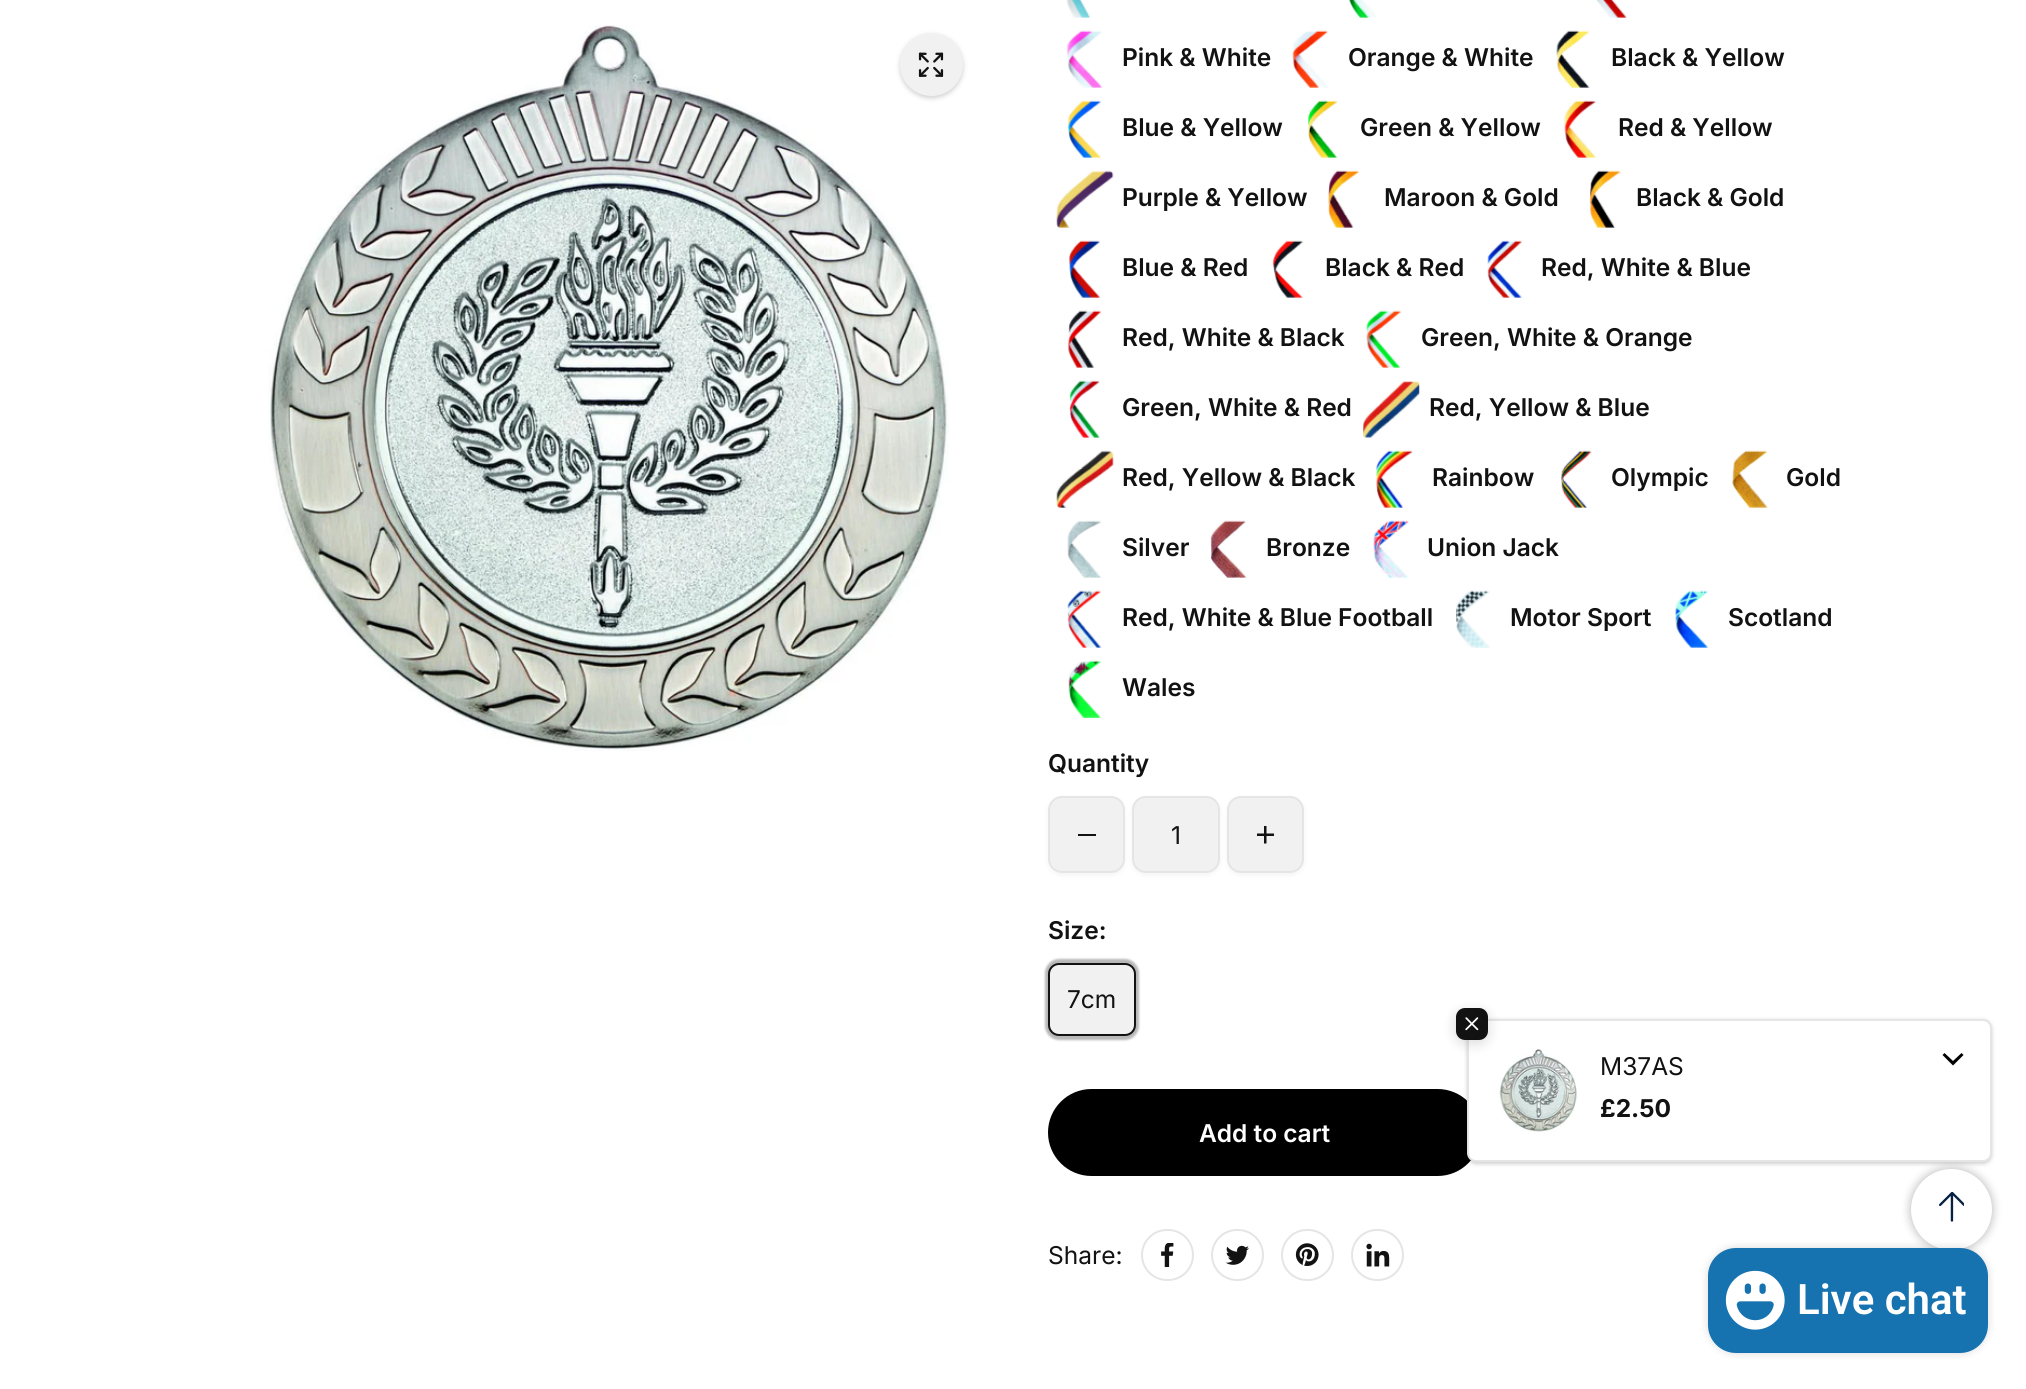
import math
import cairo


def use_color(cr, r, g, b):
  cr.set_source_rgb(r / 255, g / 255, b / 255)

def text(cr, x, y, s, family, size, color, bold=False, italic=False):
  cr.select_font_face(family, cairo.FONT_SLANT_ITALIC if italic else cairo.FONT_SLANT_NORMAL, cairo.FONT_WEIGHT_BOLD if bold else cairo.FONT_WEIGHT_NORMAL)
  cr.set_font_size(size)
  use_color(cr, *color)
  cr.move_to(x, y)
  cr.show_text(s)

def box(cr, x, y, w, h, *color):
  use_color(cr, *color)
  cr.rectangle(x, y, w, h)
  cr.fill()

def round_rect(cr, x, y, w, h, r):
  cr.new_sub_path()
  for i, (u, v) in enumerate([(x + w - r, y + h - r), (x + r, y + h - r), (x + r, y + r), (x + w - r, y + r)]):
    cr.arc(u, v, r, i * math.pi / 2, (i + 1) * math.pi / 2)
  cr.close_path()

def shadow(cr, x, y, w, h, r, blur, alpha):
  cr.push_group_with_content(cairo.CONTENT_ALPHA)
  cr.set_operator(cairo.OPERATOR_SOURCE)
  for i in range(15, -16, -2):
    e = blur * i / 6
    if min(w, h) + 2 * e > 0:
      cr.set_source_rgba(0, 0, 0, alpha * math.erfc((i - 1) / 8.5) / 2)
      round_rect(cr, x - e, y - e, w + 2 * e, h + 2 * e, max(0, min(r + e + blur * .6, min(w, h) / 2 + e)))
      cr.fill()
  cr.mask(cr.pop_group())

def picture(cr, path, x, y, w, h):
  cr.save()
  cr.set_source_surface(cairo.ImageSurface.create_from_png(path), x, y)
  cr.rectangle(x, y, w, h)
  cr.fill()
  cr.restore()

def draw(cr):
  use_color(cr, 255, 255, 255)
  cr.paint()
  picture(cr, "img_01.png", 268, 25, 681, 726)
  use_color(cr, 0, 0, 0)
  shadow(cr, 900, 35, 63, 63, 31.5, 2.5, 0.19)
  use_color(cr, 241, 241, 241)
  cr.arc(931.5, 64.5, 31.5, 0, 2 * math.pi)
  cr.fill()
  picture(cr, "img_02.png", 918, 52, 26, 25)
  picture(cr, "img_03.png", 1066, 0, 25, 18)
  picture(cr, "img_04.png", 1349, 0, 28, 18)
  picture(cr, "img_05.png", 1596, 0, 31, 18)
  picture(cr, "img_06.png", 1066, 30, 37, 58)
  picture(cr, "img_07.png", 1292, 30, 36, 58)
  picture(cr, "img_08.png", 1556, 30, 34, 58)
  picture(cr, "img_09.png", 1067, 100, 35, 58)
  picture(cr, "img_10.png", 1308, 100, 30, 58)
  picture(cr, "img_11.png", 1564, 100, 32, 58)
  picture(cr, "img_12.png", 1056, 170, 58, 58)
  picture(cr, "img_13.png", 1328, 170, 32, 58)
  picture(cr, "img_14.png", 1589, 170, 32, 58)
  picture(cr, "img_15.png", 1069, 240, 32, 58)
  picture(cr, "img_16.png", 1272, 240, 32, 58)
  picture(cr, "img_17.png", 1487, 240, 36, 58)
  picture(cr, "img_18.png", 1068, 310, 34, 58)
  picture(cr, "img_19.png", 1366, 310, 36, 58)
  picture(cr, "img_20.png", 1069, 380, 31, 58)
  picture(cr, "img_21.png", 1363, 381, 57, 57)
  picture(cr, "img_22.png", 1056, 450, 58, 58)
  picture(cr, "img_23.png", 1376, 450, 37, 58)
  picture(cr, "img_24.png", 1561, 450, 31, 58)
  picture(cr, "img_25.png", 1732, 450, 36, 58)
  picture(cr, "img_26.png", 1067, 520, 35, 58)
  picture(cr, "img_27.png", 1210, 520, 37, 58)
  picture(cr, "img_28.png", 1373, 520, 36, 58)
  picture(cr, "img_29.png", 1067, 590, 35, 58)
  picture(cr, "img_30.png", 1456, 590, 34, 58)
  picture(cr, "img_31.png", 1675, 590, 34, 58)
  picture(cr, "img_32.png", 1068, 660, 34, 58)
  use_color(cr, 18, 18, 18)
  shadow(cr, 1048, 798, 77, 77, 14, 2.5, 0.05)
  use_color(cr, 241, 241, 241)
  round_rect(cr, 1049, 797, 75, 75, 13)
  cr.fill_preserve()
  use_color(cr, 229, 229, 229)
  cr.stroke()
  box(cr, 1078, 834, 18, 2, 18, 18, 18)
  use_color(cr, 18, 18, 18)
  shadow(cr, 1132, 798, 88, 77, 14, 2.5, 0.05)
  use_color(cr, 241, 241, 241)
  round_rect(cr, 1133, 797, 86, 75, 13)
  cr.fill_preserve()
  use_color(cr, 229, 229, 229)
  cr.stroke()
  use_color(cr, 18, 18, 18)
  shadow(cr, 1227, 798, 77, 77, 14, 2.5, 0.05)
  use_color(cr, 241, 241, 241)
  round_rect(cr, 1228, 797, 75, 75, 13)
  cr.fill_preserve()
  use_color(cr, 229, 229, 229)
  cr.stroke()
  picture(cr, "img_33.png", 1257, 826, 17, 18)
  use_color(cr, 18, 18, 18)
  shadow(cr, 1045, 959, 94, 81, 14, 1, 0.3)
  use_color(cr, 241, 241, 241)
  round_rect(cr, 1049, 964, 86, 71, 10)
  cr.fill_preserve()
  use_color(cr, 18, 18, 18)
  cr.stroke()
  use_color(cr, 0, 0, 0)
  round_rect(cr, 1049, 1090, 431, 85, 42.5)
  cr.fill_preserve()
  cr.stroke()
  round_rect(cr, 1142, 1230, 51, 50, 25)
  use_color(cr, 229, 229, 229)
  cr.stroke()
  picture(cr, "img_34.png", 1161, 1243, 13, 24)
  round_rect(cr, 1212, 1230, 51, 50, 25)
  cr.stroke()
  picture(cr, "img_35.png", 1225, 1245, 24, 20)
  round_rect(cr, 1282, 1230, 51, 50, 25)
  cr.stroke()
  picture(cr, "img_36.png", 1295, 1243, 24, 23)
  round_rect(cr, 1352, 1230, 51, 50, 25)
  cr.stroke()
  picture(cr, "img_37.png", 1366, 1243, 24, 24)
  use_color(cr, 0, 0, 0)
  shadow(cr, 1911, 1169, 81, 81, 40.5, 5, 0.3)
  use_color(cr, 255, 255, 255)
  cr.arc(1951.5, 1209.5, 40.5, 0, 2 * math.pi)
  cr.fill()
  use_color(cr, 0, 0, 0)
  shadow(cr, 1467, 1020, 525, 144, 9, 2, 0.19)
  use_color(cr, 255, 255, 255)
  round_rect(cr, 1468, 1020, 523, 141, 8)
  cr.fill_preserve()
  use_color(cr, 229, 229, 229)
  cr.stroke()
  use_color(cr, 0, 0, 0)
  shadow(cr, 1456, 1012, 32, 31, 9, 7, 0.15)
  use_color(cr, 18, 18, 18)
  round_rect(cr, 1456, 1008, 32, 32, 9)
  cr.fill()
  picture(cr, "img_38.png", 1465, 1017, 14, 14)
  picture(cr, "img_39.png", 1499, 1049, 79, 83)
  use_color(cr, 0, 0, 0)
  cr.new_path()
  cr.move_to(1953, 1065.5)
  cr.line_to(1963.5, 1055)
  cr.line_to(1961.5, 1053)
  cr.line_to(1953, 1061)
  cr.line_to(1944.5, 1053)
  cr.line_to(1942.5, 1055)
  cr.close_path()
  cr.fill()
  picture(cr, "img_40.png", 1939, 1192, 25, 30)
  use_color(cr, 0, 0, 0)
  shadow(cr, 1708, 1248, 280, 105, 28, 4.5, 0.15)
  use_color(cr, 23, 115, 176)
  round_rect(cr, 1708, 1248, 280, 105, 28)
  cr.fill()
  picture(cr, "img_41.png", 1725, 1270, 60, 60)
  text(cr, 1122, 66, "Pink & White", "Inter SemiBold", 24.5, (18, 18, 18))
  text(cr, 1348, 66, "Orange & White", "Inter SemiBold", 24.5, (18, 18, 18))
  text(cr, 1611, 66, "Black & Yellow", "Inter SemiBold", 24.5, (18, 18, 18))
  text(cr, 1122, 136, "Blue & Yellow", "Inter SemiBold", 24.5, (18, 18, 18))
  text(cr, 1360, 136, "Green & Yellow", "Inter SemiBold", 24.5, (18, 18, 18))
  text(cr, 1618, 136, "Red & Yellow", "Inter SemiBold", 24.5, (18, 18, 18))
  text(cr, 1122, 206, "Purple & Yellow", "Inter SemiBold", 24.5, (18, 18, 18))
  text(cr, 1384, 206, "Maroon & Gold", "Inter SemiBold", 24.5, (18, 18, 18))
  text(cr, 1636, 206, "Black & Gold", "Inter SemiBold", 24.5, (18, 18, 18))
  text(cr, 1122, 276, "Blue & Red", "Inter SemiBold", 24.5, (18, 18, 18))
  text(cr, 1325, 276, "Black & Red", "Inter SemiBold", 24.5, (18, 18, 18))
  text(cr, 1541, 276, "Red, White & Blue", "Inter SemiBold", 24.5, (18, 18, 18))
  text(cr, 1122, 346, "Red, White & Black", "Inter SemiBold", 24.5, (18, 18, 18))
  text(cr, 1421, 346, "Green, White & Orange", "Inter SemiBold", 24.5, (18, 18, 18))
  text(cr, 1122, 416, "Green, White & Red", "Inter SemiBold", 24.5, (18, 18, 18))
  text(cr, 1429, 416, "Red, Yellow & Blue", "Inter SemiBold", 24.5, (18, 18, 18))
  text(cr, 1122, 486, "Red, Yellow & Black", "Inter SemiBold", 24.5, (18, 18, 18))
  text(cr, 1432, 486, "Rainbow", "Inter SemiBold", 24.5, (18, 18, 18))
  text(cr, 1611, 486, "Olympic", "Inter SemiBold", 24.5, (18, 18, 18))
  text(cr, 1786, 486, "Gold", "Inter SemiBold", 24.5, (18, 18, 18))
  text(cr, 1122, 556, "Silver", "Inter SemiBold", 24.5, (18, 18, 18))
  text(cr, 1266, 556, "Bronze", "Inter SemiBold", 24.5, (18, 18, 18))
  text(cr, 1427, 556, "Union Jack", "Inter SemiBold", 24.5, (18, 18, 18))
  text(cr, 1122, 626, "Red, White & Blue Football", "Inter SemiBold", 24.5, (18, 18, 18))
  text(cr, 1510, 626, "Motor Sport", "Inter SemiBold", 24.5, (18, 18, 18))
  text(cr, 1728, 626, "Scotland", "Inter SemiBold", 24.5, (18, 18, 18))
  text(cr, 1122, 696, "Wales", "Inter SemiBold", 24.5, (18, 18, 18))
  text(cr, 1048, 772, "Quantity", "Inter SemiBold", 24.5, (18, 18, 18))
  text(cr, 1171, 844, "1", "Inter", 24.5, (18, 18, 18))
  text(cr, 1048, 939, "Size:", "Inter SemiBold", 24.5, (18, 18, 18))
  text(cr, 1067, 1008, "7cm", "Inter", 24.5, (18, 18, 18))
  text(cr, 1199, 1142, "Add to cart", "Inter SemiBold", 24.5, (255, 255, 255))
  text(cr, 1048, 1264, "Share:", "Inter", 24.5, (18, 18, 18))
  text(cr, 1600, 1075, "M37AS", "Inter", 24.5, (18, 18, 18))
  text(cr, 1600, 1117, "£2.50", "Inter", 24.5, (18, 18, 18), bold=True)
  text(cr, 1797, 1314, "Live chat", "Roboto SemiBold", 42, (255, 255, 255))


surface = cairo.ImageSurface(cairo.FORMAT_RGB24, 2026, 1389)
cr = cairo.Context(surface)
options = cairo.FontOptions()
options.set_hint_metrics(cairo.HINT_METRICS_OFF)
options.set_hint_style(cairo.HINT_STYLE_NONE)
cr.set_font_options(options)
cr.set_miter_limit(4)
draw(cr)
surface.write_to_png("out.png")
